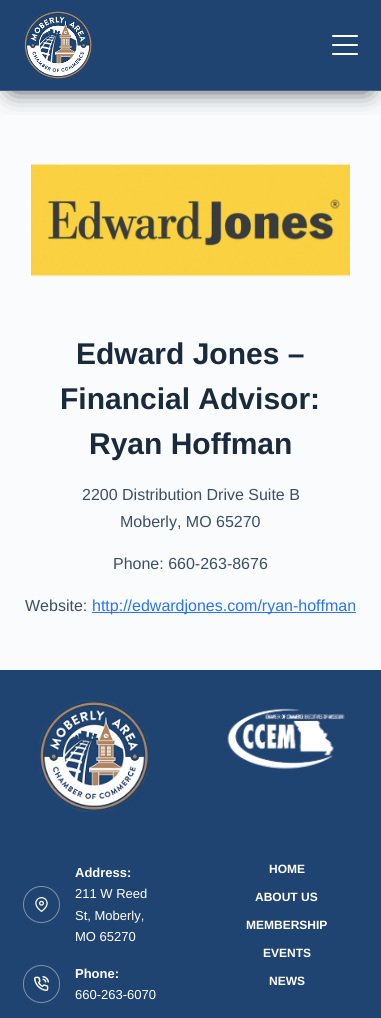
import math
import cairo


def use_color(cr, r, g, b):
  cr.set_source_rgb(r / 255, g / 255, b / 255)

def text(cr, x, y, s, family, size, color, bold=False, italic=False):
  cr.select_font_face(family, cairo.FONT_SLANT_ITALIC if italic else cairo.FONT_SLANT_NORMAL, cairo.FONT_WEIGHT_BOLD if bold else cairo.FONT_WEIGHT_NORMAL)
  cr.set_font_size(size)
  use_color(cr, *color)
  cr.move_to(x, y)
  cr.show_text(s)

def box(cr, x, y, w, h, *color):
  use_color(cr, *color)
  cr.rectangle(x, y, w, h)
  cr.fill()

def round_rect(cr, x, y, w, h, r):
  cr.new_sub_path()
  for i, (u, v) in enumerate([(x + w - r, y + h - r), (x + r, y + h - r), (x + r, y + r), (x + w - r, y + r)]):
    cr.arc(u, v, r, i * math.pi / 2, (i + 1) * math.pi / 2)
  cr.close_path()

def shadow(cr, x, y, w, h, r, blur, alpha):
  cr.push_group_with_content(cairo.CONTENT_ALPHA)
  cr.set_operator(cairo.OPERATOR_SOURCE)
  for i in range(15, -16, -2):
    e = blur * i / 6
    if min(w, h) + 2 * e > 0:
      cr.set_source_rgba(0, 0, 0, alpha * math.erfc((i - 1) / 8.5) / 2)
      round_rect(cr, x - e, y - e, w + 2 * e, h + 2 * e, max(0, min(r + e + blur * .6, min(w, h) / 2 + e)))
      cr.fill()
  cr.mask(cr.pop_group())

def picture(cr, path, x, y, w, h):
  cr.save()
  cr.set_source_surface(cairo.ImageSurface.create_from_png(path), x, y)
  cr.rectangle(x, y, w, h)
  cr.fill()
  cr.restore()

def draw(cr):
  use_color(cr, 250, 251, 252)
  cr.paint()
  box(cr, 0, 0, 381, 90, 32, 68, 113)
  cr.save()
  cr.rectangle(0, 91, 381, 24)
  cr.clip()
  use_color(cr, 31, 42, 52)
  shadow(cr, 13, 23, 355, 65, 0, 13, 1)
  cr.restore()
  box(cr, 0, 90, 381, 1, 65, 96, 134)
  picture(cr, "img_01.png", 23, 11, 70, 69)
  use_color(cr, 255, 255, 255)
  round_rect(cr, 332, 35, 26, 2, 1)
  cr.fill()
  round_rect(cr, 332, 44, 26, 2, 1)
  cr.fill()
  round_rect(cr, 332, 53, 26, 2, 1)
  cr.fill()
  picture(cr, "img_02.png", 31, 164, 319, 113)
  box(cr, 92, 612, 264, 1, 40, 114, 250)
  box(cr, 0, 670, 381, 348, 32, 68, 113)
  picture(cr, "img_03.png", 38, 700, 112, 112)
  picture(cr, "img_04.png", 227, 708, 118, 61)
  cr.arc(41.5, 904.5, 18, 0, 2 * math.pi)
  use_color(cr, 125, 145, 171)
  cr.set_line_width(1)
  cr.stroke()
  picture(cr, "img_05.png", 35, 897, 13, 15)
  round_rect(cr, 23.5, 965.5, 36, 37, 18)
  cr.stroke()
  picture(cr, "img_06.png", 34, 976, 15, 15)
  text(cr, 76, 364, "Edward Jones –", "Liberation Sans", 30, (25, 42, 61), bold=True)
  text(cr, 60, 409, "Financial Advisor:", "Liberation Sans", 30, (25, 42, 61), bold=True)
  text(cr, 89, 454, "Ryan Hoffman", "Liberation Sans", 30, (25, 42, 61), bold=True)
  text(cr, 82, 500, "2200 Distribution Drive Suite B", "Liberation Sans", 16, (58, 79, 102))
  text(cr, 120, 527, "Moberly, MO 65270", "Liberation Sans", 16, (58, 79, 102))
  text(cr, 113, 569, "Phone: 660-263-8676", "Liberation Sans", 16, (58, 79, 102))
  text(cr, 25, 611, "Website:", "Liberation Sans", 16, (58, 79, 102))
  text(cr, 92, 611, "http://edwardjones.com/ryan-hoffman", "Liberation Sans", 16, (40, 114, 250))
  text(cr, 75, 877, "Address:", "Liberation Sans", 13, (255, 255, 255), bold=True)
  text(cr, 75, 898, "211 W Reed", "Liberation Sans", 13, (255, 255, 255))
  text(cr, 75, 920, "St, Moberly,", "Liberation Sans", 13, (255, 255, 255))
  text(cr, 75, 941, "MO 65270", "Liberation Sans", 13, (255, 255, 255))
  text(cr, 75, 978, "Phone:", "Liberation Sans", 13, (255, 255, 255), bold=True)
  text(cr, 75, 999, "660-263-6070", "Liberation Sans", 13, (255, 255, 255))
  text(cr, 269, 873, "HOME", "Liberation Sans", 12, (255, 255, 255), bold=True)
  text(cr, 255, 901, "ABOUT US", "Liberation Sans", 12, (255, 255, 255), bold=True)
  text(cr, 246, 929, "MEMBERSHIP", "Liberation Sans", 12, (255, 255, 255), bold=True)
  text(cr, 263, 957, "EVENTS", "Liberation Sans", 12, (255, 255, 255), bold=True)
  text(cr, 269, 985, "NEWS", "Liberation Sans", 12, (255, 255, 255), bold=True)


surface = cairo.ImageSurface(cairo.FORMAT_RGB24, 381, 1018)
cr = cairo.Context(surface)
options = cairo.FontOptions()
options.set_hint_metrics(cairo.HINT_METRICS_OFF)
options.set_hint_style(cairo.HINT_STYLE_NONE)
cr.set_font_options(options)
cr.set_miter_limit(4)
draw(cr)
surface.write_to_png("out.png")
